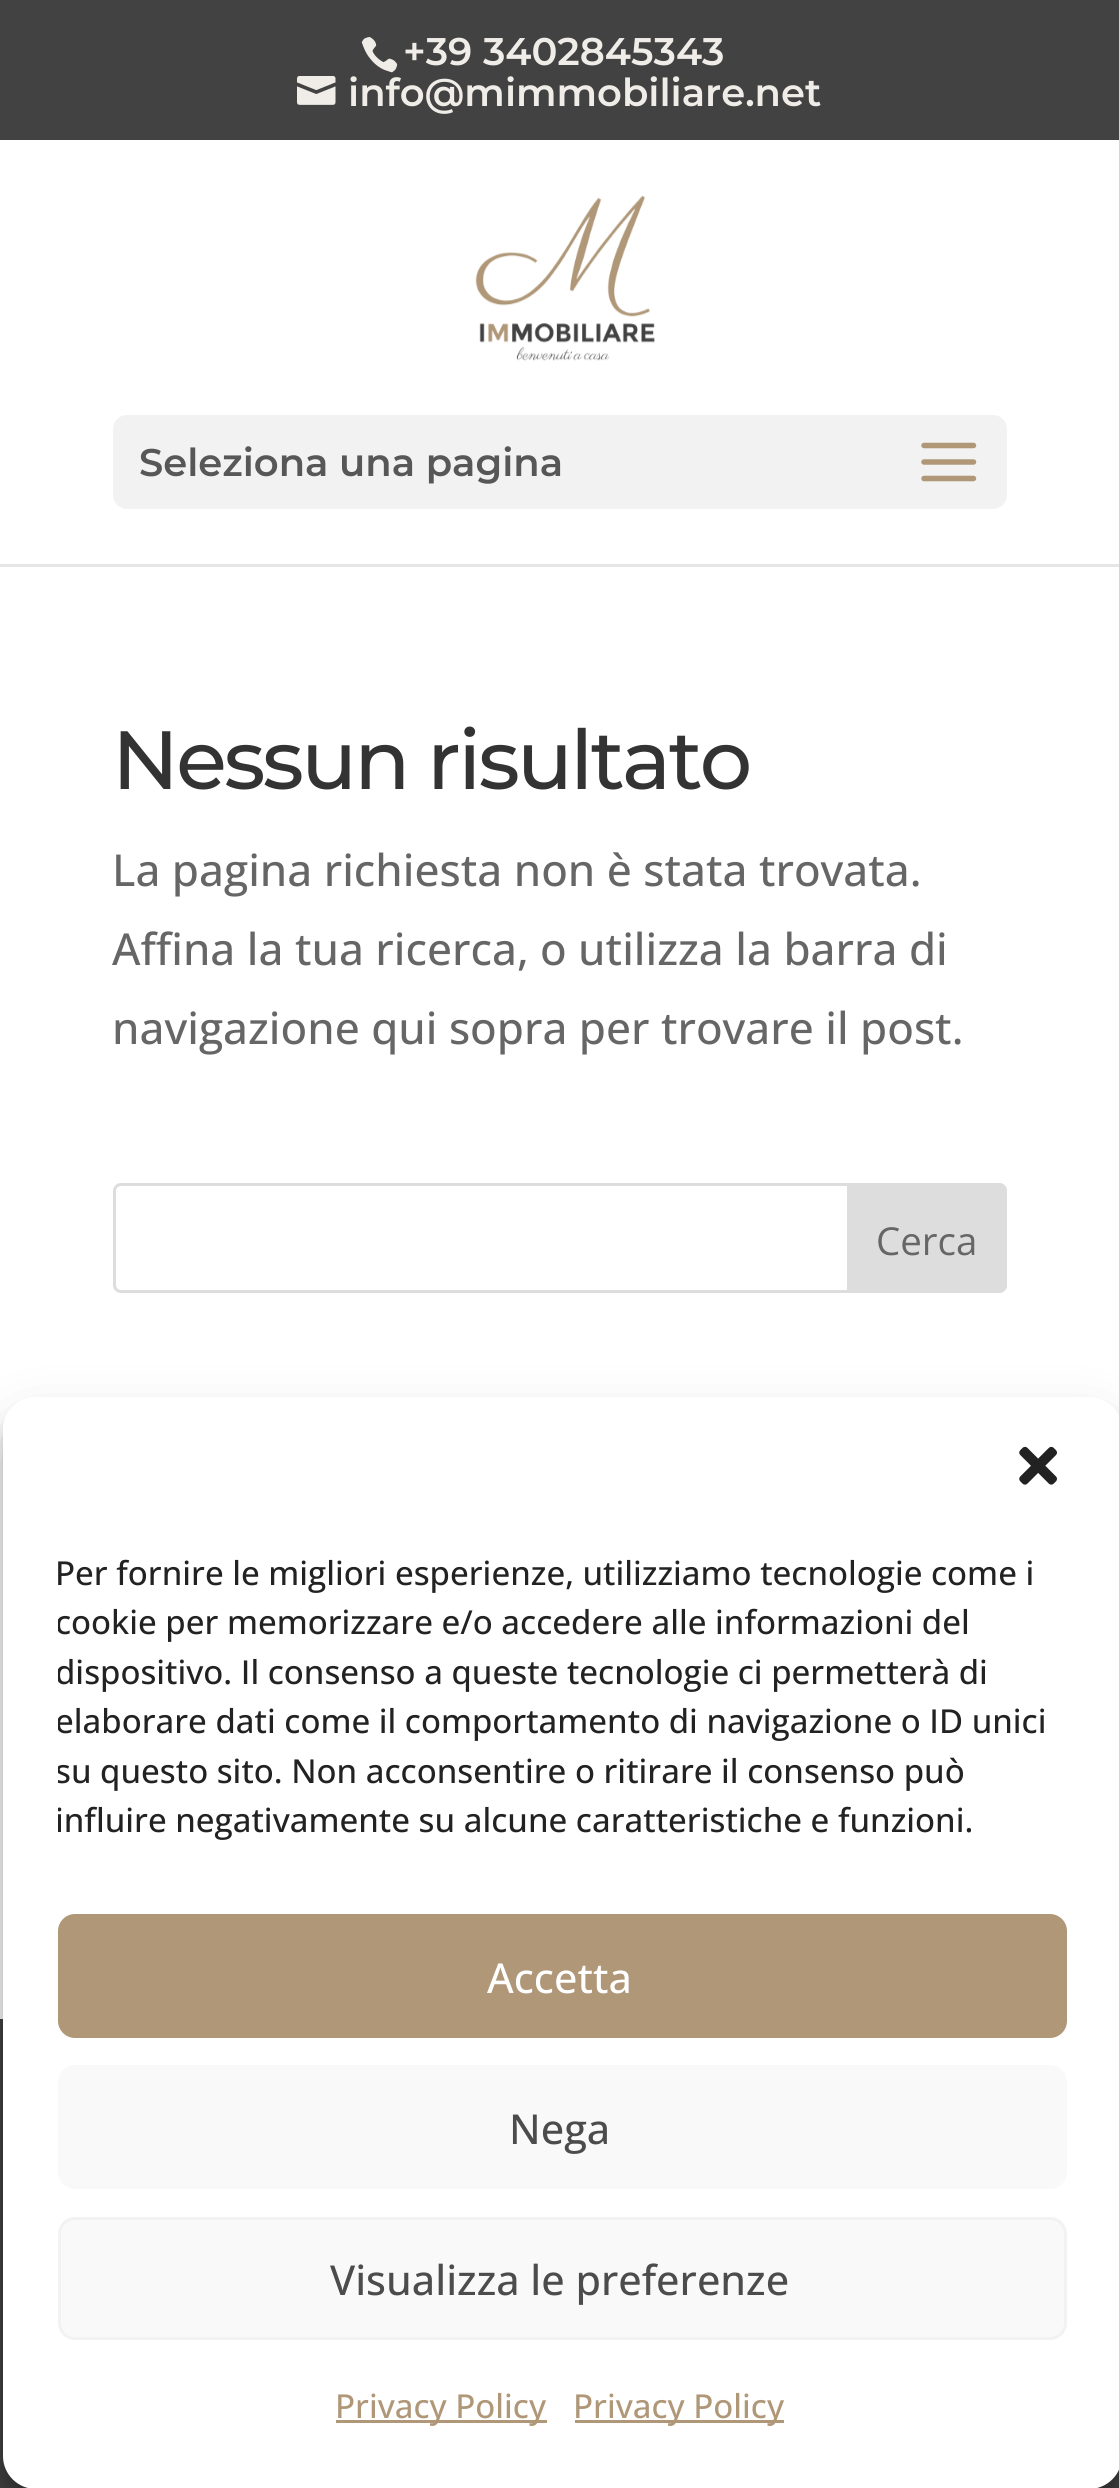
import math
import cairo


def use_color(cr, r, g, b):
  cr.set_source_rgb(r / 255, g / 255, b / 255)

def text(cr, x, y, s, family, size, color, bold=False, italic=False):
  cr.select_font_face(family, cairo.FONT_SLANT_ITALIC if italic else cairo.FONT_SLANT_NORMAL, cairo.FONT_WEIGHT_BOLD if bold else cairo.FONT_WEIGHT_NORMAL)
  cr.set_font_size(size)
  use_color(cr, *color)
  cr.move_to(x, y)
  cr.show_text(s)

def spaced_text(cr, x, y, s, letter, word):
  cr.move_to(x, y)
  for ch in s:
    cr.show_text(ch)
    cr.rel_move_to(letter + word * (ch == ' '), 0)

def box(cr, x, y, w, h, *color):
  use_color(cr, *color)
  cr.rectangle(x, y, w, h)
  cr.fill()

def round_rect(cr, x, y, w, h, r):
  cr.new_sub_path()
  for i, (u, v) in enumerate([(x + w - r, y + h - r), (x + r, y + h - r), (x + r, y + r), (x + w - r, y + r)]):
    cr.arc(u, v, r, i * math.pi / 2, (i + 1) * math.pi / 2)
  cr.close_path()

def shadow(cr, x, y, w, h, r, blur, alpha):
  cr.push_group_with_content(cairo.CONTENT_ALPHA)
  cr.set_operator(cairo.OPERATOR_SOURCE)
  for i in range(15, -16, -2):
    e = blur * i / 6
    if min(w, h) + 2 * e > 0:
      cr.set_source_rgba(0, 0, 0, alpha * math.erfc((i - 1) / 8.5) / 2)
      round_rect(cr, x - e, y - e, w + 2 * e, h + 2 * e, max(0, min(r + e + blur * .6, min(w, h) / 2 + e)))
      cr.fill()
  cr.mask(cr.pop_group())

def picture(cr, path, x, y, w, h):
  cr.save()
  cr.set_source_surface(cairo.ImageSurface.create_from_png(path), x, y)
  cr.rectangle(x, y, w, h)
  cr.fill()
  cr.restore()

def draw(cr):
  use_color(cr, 255, 255, 255)
  cr.paint()
  box(cr, 0, 0, 1119, 140, 67, 66, 66)
  picture(cr, "img_01.png", 361, 37, 37, 36)
  picture(cr, "img_02.png", 297, 76, 39, 29)
  box(cr, 0, 564, 1119, 3, 230, 230, 230)
  picture(cr, "img_03.png", 475, 195, 180, 166)
  use_color(cr, 242, 242, 242)
  round_rect(cr, 113, 415, 894, 94, 14)
  cr.fill()
  picture(cr, "img_04.png", 921, 442, 56, 40)
  round_rect(cr, 114.5, 1184.5, 891, 107, 6.5)
  use_color(cr, 221, 221, 221)
  cr.set_line_width(3)
  cr.stroke()
  cr.new_path()
  cr.move_to(848.5, 1184.5)
  cr.line_to(999, 1184.5)
  cr.curve_to(1002.5, 1184.5, 1005.5, 1187.5, 1005.5, 1191)
  cr.line_to(1005.5, 1285)
  cr.curve_to(1005.5, 1288.5, 1002.5, 1291.5, 999, 1291.5)
  cr.line_to(848.5, 1291.5)
  cr.close_path()
  cr.fill_preserve()
  cr.stroke()
  box(cr, 0, 2019, 1119, 469, 67, 66, 66)
  cr.save()
  cr.set_fill_rule(cairo.FILL_RULE_EVEN_ODD)
  cr.new_path()
  cr.move_to(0, 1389)
  cr.line_to(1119, 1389)
  cr.line_to(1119, 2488)
  cr.line_to(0, 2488)
  cr.close_path()
  cr.move_to(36, 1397)
  cr.line_to(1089, 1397)
  cr.curve_to(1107, 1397, 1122, 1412, 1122, 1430)
  cr.line_to(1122, 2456)
  cr.curve_to(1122, 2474, 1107, 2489, 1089, 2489)
  cr.line_to(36, 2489)
  cr.curve_to(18, 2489, 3, 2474, 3, 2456)
  cr.line_to(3, 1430)
  cr.curve_to(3, 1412, 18, 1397, 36, 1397)
  cr.close_path()
  cr.clip()
  use_color(cr, 0, 0, 0)
  shadow(cr, 3, 1414, 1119, 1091, 33, 8, 0.23)
  cr.restore()
  cr.save()
  cr.set_fill_rule(cairo.FILL_RULE_EVEN_ODD)
  cr.new_path()
  cr.move_to(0, 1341)
  cr.line_to(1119, 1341)
  cr.line_to(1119, 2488)
  cr.line_to(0, 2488)
  cr.close_path()
  cr.move_to(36, 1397)
  cr.line_to(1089, 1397)
  cr.curve_to(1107, 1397, 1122, 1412, 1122, 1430)
  cr.line_to(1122, 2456)
  cr.curve_to(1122, 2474, 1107, 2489, 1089, 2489)
  cr.line_to(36, 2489)
  cr.curve_to(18, 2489, 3, 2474, 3, 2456)
  cr.line_to(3, 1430)
  cr.curve_to(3, 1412, 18, 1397, 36, 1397)
  cr.close_path()
  cr.clip()
  use_color(cr, 0, 0, 0)
  shadow(cr, 3, 1425, 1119, 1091, 33, 27.5, 0.19)
  cr.restore()
  use_color(cr, 255, 255, 255)
  round_rect(cr, 3, 1397, 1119, 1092, 33)
  cr.fill()
  picture(cr, "img_05.png", 1019, 1446, 38, 39)
  use_color(cr, 175, 151, 120)
  round_rect(cr, 59.5, 1915.5, 1006, 121, 15.5)
  cr.fill_preserve()
  cr.stroke()
  use_color(cr, 249, 249, 249)
  round_rect(cr, 58, 2065, 1009, 124, 17)
  cr.fill()
  round_rect(cr, 59.5, 2218.5, 1006, 120, 15.5)
  cr.fill_preserve()
  use_color(cr, 242, 242, 242)
  cr.stroke()
  box(cr, 336, 2420, 211, 3, 175, 151, 120)
  box(cr, 575, 2420, 209, 3, 175, 151, 120)
  text(cr, 403, 65, "+39 3402845343", "Montserrat SemiBold", 38.5, (240, 237, 232))
  text(cr, 348, 106, "info@mimmobiliare.net", "Montserrat SemiBold", 38.5, (240, 237, 232))
  text(cr, 139, 476, "Seleziona una pagina", "Montserrat SemiBold", 38.5, (88, 87, 87))
  cr.select_font_face("Montserrat Medium")
  cr.set_font_size(82.5)
  use_color(cr, 51, 51, 51)
  spaced_text(cr, 112, 789, "Nessun risultato", -2.75, 0)
  text(cr, 112, 886, "La pagina richiesta non è stata trovata.", "Open Sans Medium", 44, (102, 102, 102))
  text(cr, 112, 965, "Affina la tua ricerca, o utilizza la barra di", "Open Sans Medium", 44, (102, 102, 102))
  text(cr, 112, 1044, "navigazione qui sopra per trovare il post.", "Open Sans Medium", 44, (102, 102, 102))
  text(cr, 876, 1255, "Cerca", "Open Sans", 38.5, (102, 102, 102))
  text(cr, 55, 1585, "Per fornire le migliori esperienze, utilizziamo tecnologie come i", "Open Sans Medium", 33, (34, 34, 34))
  cr.save()
  cr.rectangle(58, 1548, 1009, 311)
  cr.clip()
  text(cr, 55, 1634, "cookie per memorizzare e/o accedere alle informazioni del", "Open Sans Medium", 33, (34, 34, 34))
  text(cr, 55, 1684, "dispositivo. Il consenso a queste tecnologie ci permetterà di", "Open Sans Medium", 33, (34, 34, 34))
  text(cr, 55, 1733, "elaborare dati come il comportamento di navigazione o ID unici", "Open Sans Medium", 33, (34, 34, 34))
  text(cr, 55, 1783, "su questo sito. Non acconsentire o ritirare il consenso può", "Open Sans Medium", 33, (34, 34, 34))
  text(cr, 55, 1832, "influire negativamente su alcune caratteristiche e funzioni.", "Open Sans Medium", 33, (34, 34, 34))
  cr.restore()
  text(cr, 487, 1993, "Accetta", "Open Sans Medium", 41.25, (255, 255, 255))
  text(cr, 509, 2144, "Nega", "Open Sans Medium", 41.25, (76, 76, 76))
  text(cr, 330, 2295, "Visualizza le preferenze", "Open Sans Medium", 41.25, (76, 76, 76))
  text(cr, 335, 2418, "Privacy Policy", "Open Sans Medium", 33, (175, 151, 120))
  text(cr, 573, 2418, "Privacy Policy", "Open Sans Medium", 33, (175, 151, 120))


surface = cairo.ImageSurface(cairo.FORMAT_RGB24, 1119, 2488)
cr = cairo.Context(surface)
options = cairo.FontOptions()
options.set_hint_metrics(cairo.HINT_METRICS_OFF)
options.set_hint_style(cairo.HINT_STYLE_NONE)
cr.set_font_options(options)
cr.set_miter_limit(4)
draw(cr)
surface.write_to_png("out.png")
